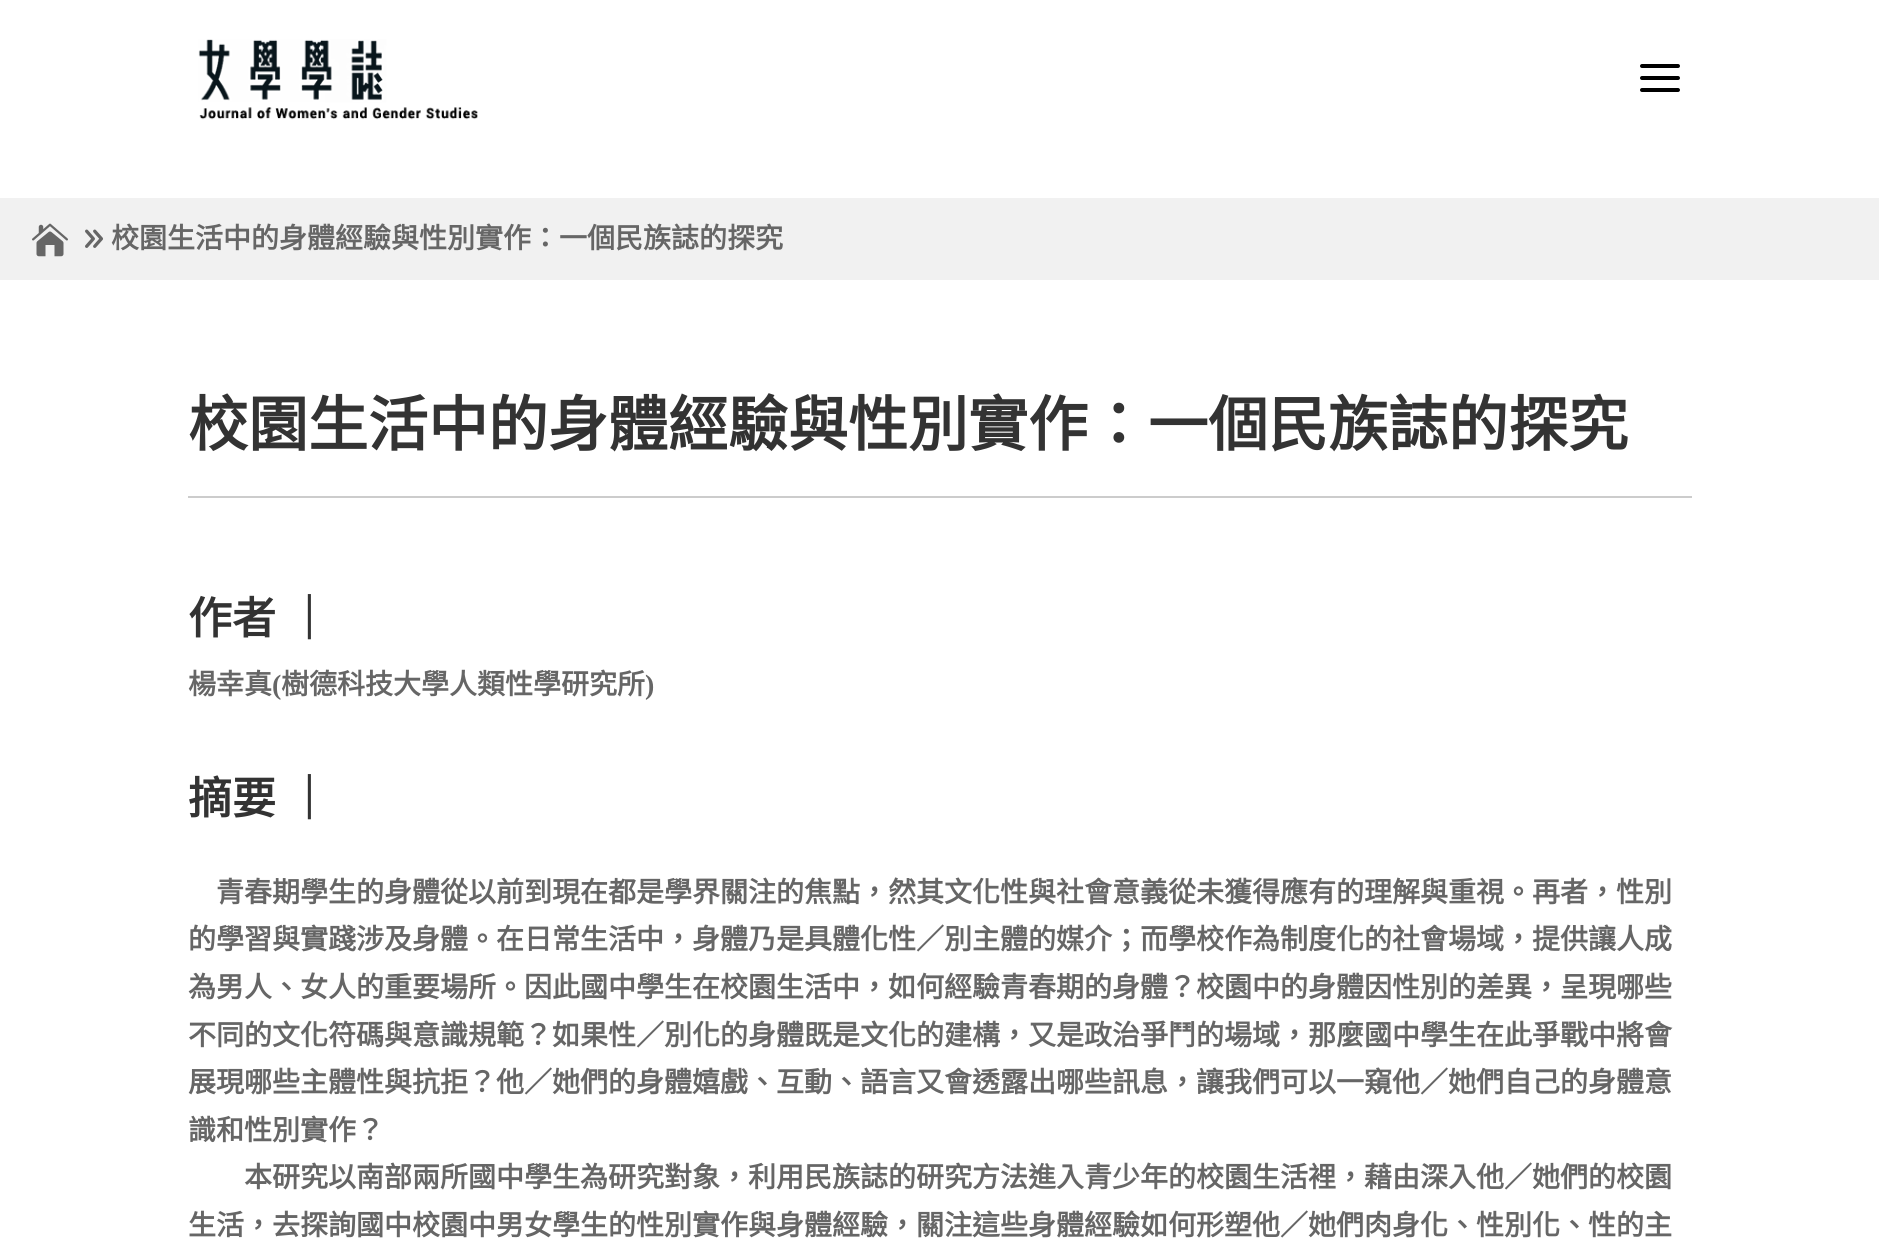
import math
import cairo


def use_color(cr, r, g, b):
  cr.set_source_rgb(r / 255, g / 255, b / 255)

def text(cr, x, y, s, family, size, color, bold=False, italic=False):
  cr.select_font_face(family, cairo.FONT_SLANT_ITALIC if italic else cairo.FONT_SLANT_NORMAL, cairo.FONT_WEIGHT_BOLD if bold else cairo.FONT_WEIGHT_NORMAL)
  cr.set_font_size(size)
  use_color(cr, *color)
  cr.move_to(x, y)
  cr.show_text(s)

def spaced_text(cr, x, y, s, letter, word):
  cr.move_to(x, y)
  for ch in s:
    cr.show_text(ch)
    cr.rel_move_to(letter + word * (ch == ' '), 0)

def box(cr, x, y, w, h, *color):
  use_color(cr, *color)
  cr.rectangle(x, y, w, h)
  cr.fill()

def picture(cr, path, x, y, w, h):
  cr.save()
  cr.set_source_surface(cairo.ImageSurface.create_from_png(path), x, y)
  cr.rectangle(x, y, w, h)
  cr.fill()
  cr.restore()

def draw(cr):
  use_color(cr, 255, 255, 255)
  cr.paint()
  picture(cr, "img_01.png", 198, 39, 280, 81)
  picture(cr, "img_02.png", 1640, 64, 40, 28)
  box(cr, 0, 198, 1879, 82, 241, 241, 241)
  picture(cr, "img_03.png", 32, 223, 36, 34)
  box(cr, 188, 496, 1504, 2, 204, 204, 204)
  text(cr, 75, 255, "9", "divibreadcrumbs", 36, (102, 102, 102), bold=True)
  text(cr, 111, 248, "校園生活中的身體經驗與性別實作：一個民族誌的探究", "Noto Sans CJK TC", 28, (102, 102, 102), bold=True)
  text(cr, 188, 446, "校園生活中的身體經驗與性別實作：一個民族誌的探究", "Noto Sans CJK TC", 60, (51, 51, 51), bold=True)
  cr.set_font_size(44)
  spaced_text(cr, 188, 634, "作者 ｜", 0, 1)
  text(cr, 188, 694, "楊幸真", "Noto Sans CJK TC", 28, (102, 102, 102), bold=True)
  text(cr, 272, 694, "(", "Liberation Serif", 28, (102, 102, 102), bold=True)
  text(cr, 281, 694, "樹德科技大學人類性學研究所", "Noto Sans CJK TC", 28, (102, 102, 102), bold=True)
  text(cr, 645, 694, ")", "Liberation Serif", 28, (102, 102, 102), bold=True)
  cr.select_font_face("Noto Sans CJK TC", cairo.FONT_SLANT_NORMAL, cairo.FONT_WEIGHT_BOLD)
  cr.set_font_size(44)
  use_color(cr, 51, 51, 51)
  spaced_text(cr, 188, 814, "摘要 ｜", 0, 1)
  text(cr, 216, 902, "青春期學生的身體從以前到現在都是學界關注的焦點，然其文化性與社會意義從未獲得應有的理解與重視。再者，性別", "Noto Sans CJK TC", 28, (102, 102, 102), bold=True)
  text(cr, 188, 949, "的學習與實踐涉及身體。在日常生活中，身體乃是具體化性／別主體的媒介；而學校作為制度化的社會場域，提供讓人成", "Noto Sans CJK TC", 28, (102, 102, 102), bold=True)
  text(cr, 188, 997, "為男人、女人的重要場所。因此國中學生在校園生活中，如何經驗青春期的身體？校園中的身體因性別的差異，呈現哪些", "Noto Sans CJK TC", 28, (102, 102, 102), bold=True)
  text(cr, 188, 1045, "不同的文化符碼與意識規範？如果性／別化的身體既是文化的建構，又是政治爭鬥的場域，那麼國中學生在此爭戰中將會", "Noto Sans CJK TC", 28, (102, 102, 102), bold=True)
  text(cr, 188, 1092, "展現哪些主體性與抗拒？他／她們的身體嬉戲、互動、語言又會透露出哪些訊息，讓我們可以一窺他／她們自己的身體意", "Noto Sans CJK TC", 28, (102, 102, 102), bold=True)
  text(cr, 188, 1140, "識和性別實作？", "Noto Sans CJK TC", 28, (102, 102, 102), bold=True)
  text(cr, 244, 1187, "本研究以南部兩所國中學生為研究對象，利用民族誌的研究方法進入青少年的校園生活裡，藉由深入他／她們的校園", "Noto Sans CJK TC", 28, (102, 102, 102), bold=True)
  text(cr, 188, 1235, "生活，去探詢國中校園中男女學生的性別實作與身體經驗，關注這些身體經驗如何形塑他／她們肉身化、性別化、性的主", "Noto Sans CJK TC", 28, (102, 102, 102), bold=True)


surface = cairo.ImageSurface(cairo.FORMAT_RGB24, 1879, 1251)
cr = cairo.Context(surface)
options = cairo.FontOptions()
options.set_hint_metrics(cairo.HINT_METRICS_OFF)
options.set_hint_style(cairo.HINT_STYLE_NONE)
cr.set_font_options(options)
cr.set_miter_limit(4)
draw(cr)
surface.write_to_png("out.png")
